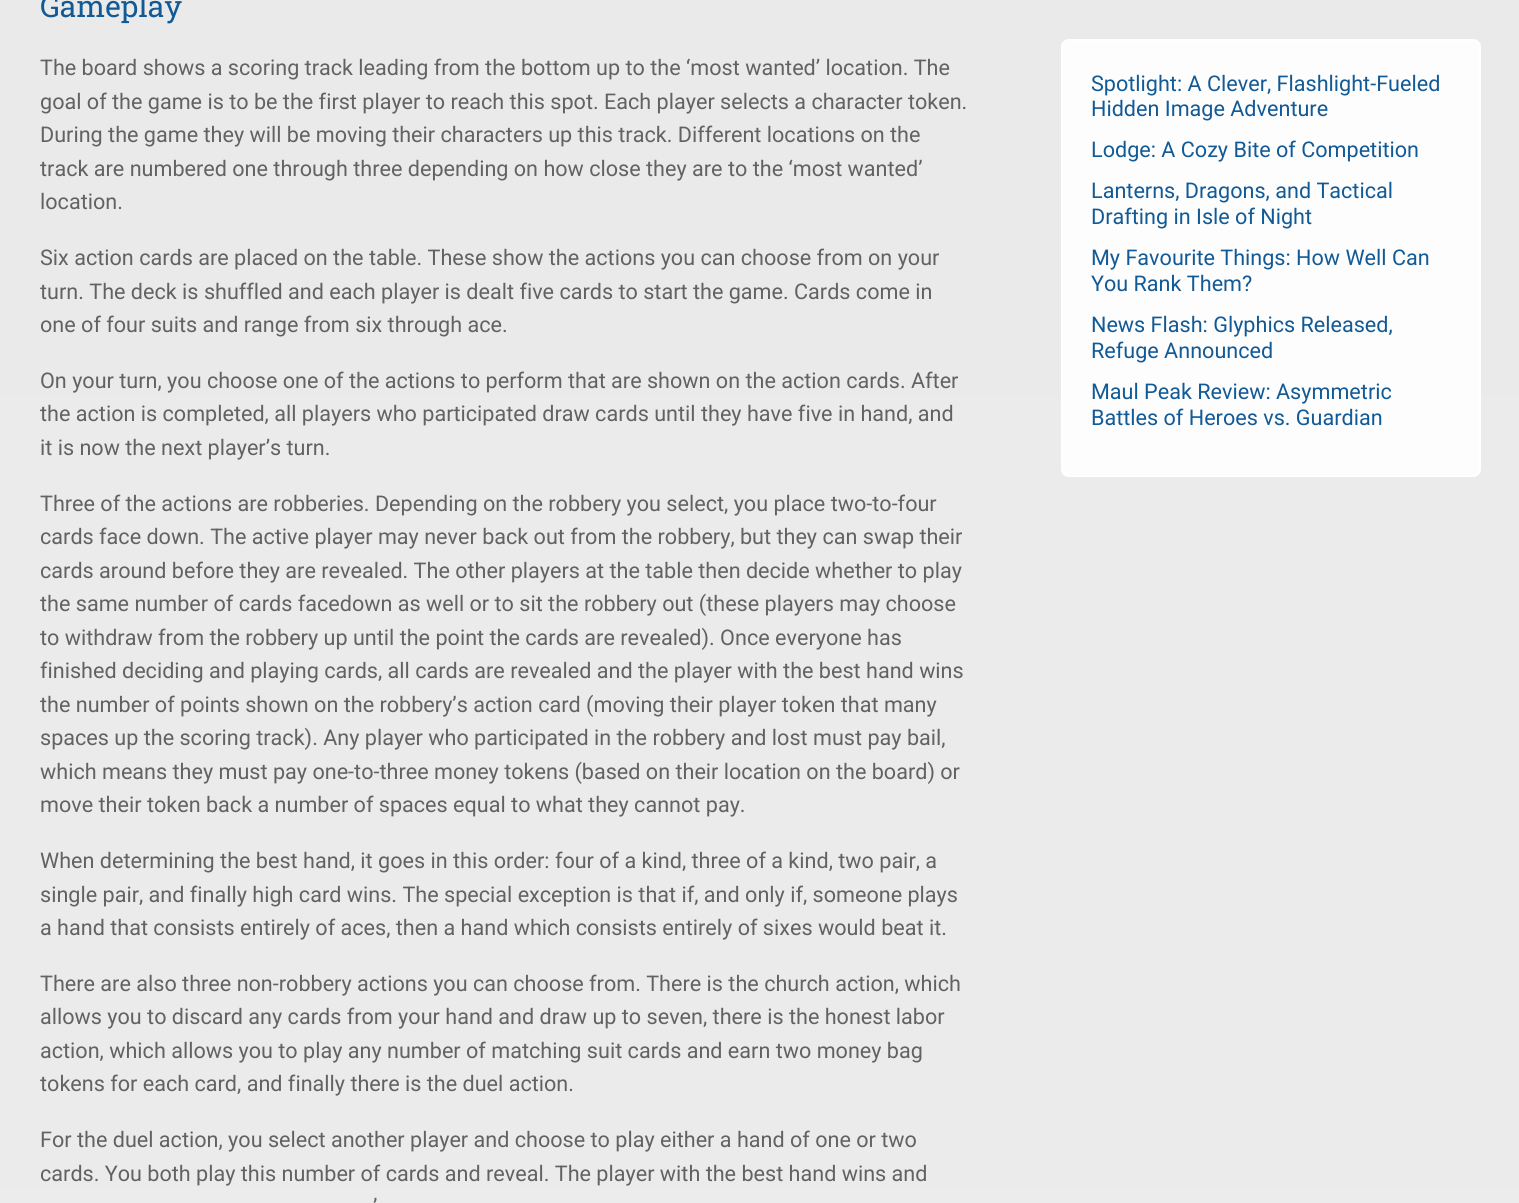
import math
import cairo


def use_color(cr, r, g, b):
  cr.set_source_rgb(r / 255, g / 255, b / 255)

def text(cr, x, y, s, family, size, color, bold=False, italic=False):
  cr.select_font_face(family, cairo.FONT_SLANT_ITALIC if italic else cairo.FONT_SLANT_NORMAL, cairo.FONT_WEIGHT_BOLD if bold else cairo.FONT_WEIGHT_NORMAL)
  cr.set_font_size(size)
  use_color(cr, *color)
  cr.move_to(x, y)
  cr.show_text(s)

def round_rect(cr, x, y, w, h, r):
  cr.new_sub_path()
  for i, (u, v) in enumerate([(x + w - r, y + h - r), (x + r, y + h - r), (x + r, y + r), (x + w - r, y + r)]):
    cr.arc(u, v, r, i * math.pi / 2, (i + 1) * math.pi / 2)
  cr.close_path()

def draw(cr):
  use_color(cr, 255, 255, 255)
  cr.paint()
  gradient = cairo.LinearGradient(760, -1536, 760, 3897)
  gradient.add_color_stop_rgba(0, 0.91, 0.91, 0.91, 1)
  gradient.add_color_stop_rgba(1, 0.937, 0.937, 0.937, 1)
  cr.set_source(gradient)
  cr.rectangle(0, 0, 1519, 1203)
  cr.fill()
  use_color(cr, 253, 253, 253)
  round_rect(cr, 1062, 40, 418, 436, 7)
  cr.fill_preserve()
  use_color(cr, 255, 255, 255)
  cr.stroke()
  text(cr, 40, 17, "Gameplay", "Roboto Slab", 30, (18, 90, 150))
  text(cr, 40, 75, "The board shows a scoring track leading from the bottom up to the ‘most wanted’ location. The", "Roboto", 21.6, (98, 98, 98))
  text(cr, 40, 109, "goal of the game is to be the first player to reach this spot. Each player selects a character token.", "Roboto", 21.6, (98, 98, 98))
  text(cr, 40, 142, "During the game they will be moving their characters up this track. Different locations on the", "Roboto", 21.6, (98, 98, 98))
  text(cr, 40, 176, "track are numbered one through three depending on how close they are to the ‘most wanted’", "Roboto", 21.6, (98, 98, 98))
  text(cr, 40, 209, "location.", "Roboto", 21.6, (98, 98, 98))
  text(cr, 40, 265, "Six action cards are placed on the table. These show the actions you can choose from on your", "Roboto", 21.6, (98, 98, 98))
  text(cr, 40, 299, "turn. The deck is shuffled and each player is dealt five cards to start the game. Cards come in", "Roboto", 21.6, (98, 98, 98))
  text(cr, 40, 332, "one of four suits and range from six through ace.", "Roboto", 21.6, (98, 98, 98))
  text(cr, 40, 388, "On your turn, you choose one of the actions to perform that are shown on the action cards. After", "Roboto", 21.6, (98, 98, 98))
  text(cr, 40, 421, "the action is completed, all players who participated draw cards until they have five in hand, and", "Roboto", 21.6, (98, 98, 98))
  text(cr, 40, 455, "it is now the next player’s turn.", "Roboto", 21.6, (98, 98, 98))
  text(cr, 40, 511, "Three of the actions are robberies. Depending on the robbery you select, you place two-to-four", "Roboto", 21.6, (98, 98, 98))
  text(cr, 40, 544, "cards face down. The active player may never back out from the robbery, but they can swap their", "Roboto", 21.6, (98, 98, 98))
  text(cr, 40, 578, "cards around before they are revealed. The other players at the table then decide whether to play", "Roboto", 21.6, (98, 98, 98))
  text(cr, 40, 611, "the same number of cards facedown as well or to sit the robbery out (these players may choose", "Roboto", 21.6, (98, 98, 98))
  text(cr, 40, 645, "to withdraw from the robbery up until the point the cards are revealed). Once everyone has", "Roboto", 21.6, (98, 98, 98))
  text(cr, 40, 678, "finished deciding and playing cards, all cards are revealed and the player with the best hand wins", "Roboto", 21.6, (98, 98, 98))
  text(cr, 40, 712, "the number of points shown on the robbery’s action card (moving their player token that many", "Roboto", 21.6, (98, 98, 98))
  text(cr, 40, 745, "spaces up the scoring track). Any player who participated in the robbery and lost must pay bail,", "Roboto", 21.6, (98, 98, 98))
  text(cr, 40, 779, "which means they must pay one-to-three money tokens (based on their location on the board) or", "Roboto", 21.6, (98, 98, 98))
  text(cr, 40, 812, "move their token back a number of spaces equal to what they cannot pay.", "Roboto", 21.6, (98, 98, 98))
  text(cr, 40, 868, "When determining the best hand, it goes in this order: four of a kind, three of a kind, two pair, a", "Roboto", 21.6, (98, 98, 98))
  text(cr, 40, 902, "single pair, and finally high card wins. The special exception is that if, and only if, someone plays", "Roboto", 21.6, (98, 98, 98))
  text(cr, 40, 935, "a hand that consists entirely of aces, then a hand which consists entirely of sixes would beat it.", "Roboto", 21.6, (98, 98, 98))
  text(cr, 40, 991, "There are also three non-robbery actions you can choose from. There is the church action, which", "Roboto", 21.6, (98, 98, 98))
  text(cr, 40, 1024, "allows you to discard any cards from your hand and draw up to seven, there is the honest labor", "Roboto", 21.6, (98, 98, 98))
  text(cr, 40, 1058, "action, which allows you to play any number of matching suit cards and earn two money bag", "Roboto", 21.6, (98, 98, 98))
  text(cr, 40, 1091, "tokens for each card, and finally there is the duel action.", "Roboto", 21.6, (98, 98, 98))
  text(cr, 40, 1147, "For the duel action, you select another player and choose to play either a hand of one or two", "Roboto", 21.6, (98, 98, 98))
  text(cr, 40, 1181, "cards. You both play this number of cards and reveal. The player with the best hand wins and", "Roboto", 21.6, (98, 98, 98))
  text(cr, 373, 1214, "’", "Roboto", 21.6, (98, 98, 98))
  text(cr, 1091, 91, "Spotlight: A Clever, Flashlight-Fueled", "Roboto", 21.6, (18, 90, 150))
  text(cr, 1091, 116, "Hidden Image Adventure", "Roboto", 21.6, (18, 90, 150))
  text(cr, 1091, 157, "Lodge: A Cozy Bite of Competition", "Roboto", 21.6, (18, 90, 150))
  text(cr, 1091, 198, "Lanterns, Dragons, and Tactical", "Roboto", 21.6, (18, 90, 150))
  text(cr, 1091, 224, "Drafting in Isle of Night", "Roboto", 21.6, (18, 90, 150))
  text(cr, 1091, 265, "My Favourite Things: How Well Can", "Roboto", 21.6, (18, 90, 150))
  text(cr, 1091, 291, "You Rank Them?", "Roboto", 21.6, (18, 90, 150))
  text(cr, 1091, 332, "News Flash: Glyphics Released,", "Roboto", 21.6, (18, 90, 150))
  text(cr, 1091, 358, "Refuge Announced", "Roboto", 21.6, (18, 90, 150))
  text(cr, 1091, 399, "Maul Peak Review: Asymmetric", "Roboto", 21.6, (18, 90, 150))
  text(cr, 1091, 425, "Battles of Heroes vs. Guardian", "Roboto", 21.6, (18, 90, 150))


surface = cairo.ImageSurface(cairo.FORMAT_RGB24, 1519, 1203)
cr = cairo.Context(surface)
options = cairo.FontOptions()
options.set_hint_metrics(cairo.HINT_METRICS_OFF)
options.set_hint_style(cairo.HINT_STYLE_NONE)
cr.set_font_options(options)
cr.set_miter_limit(4)
draw(cr)
surface.write_to_png("out.png")
